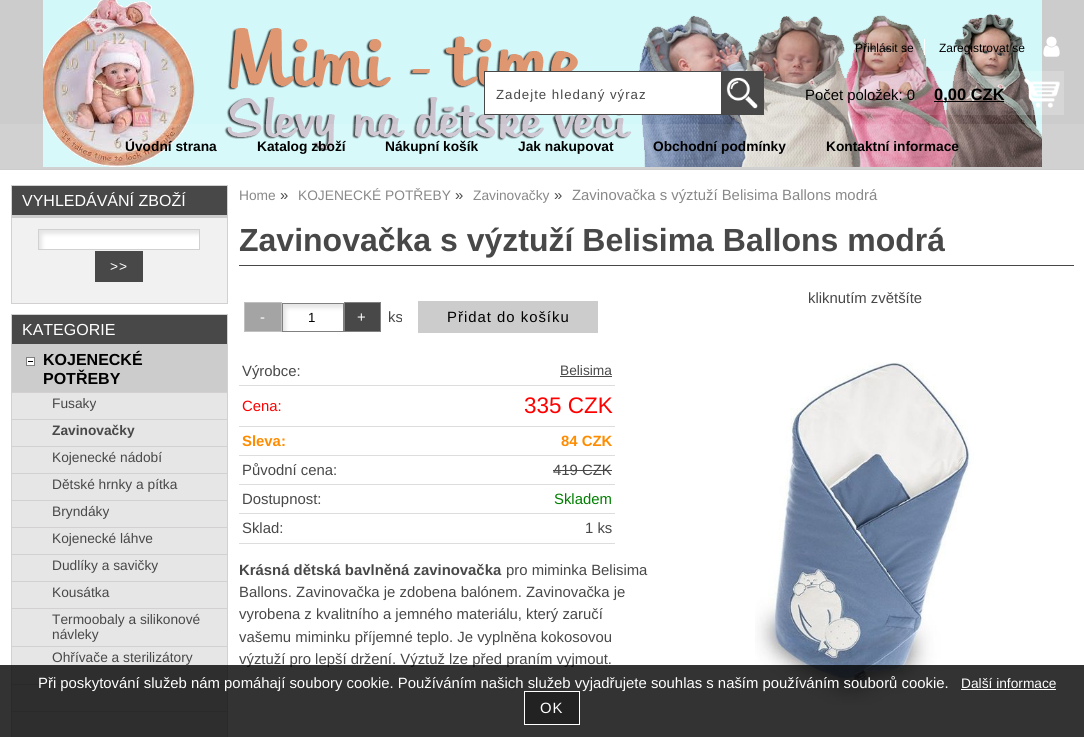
import math
import cairo


def use_color(cr, r, g, b):
  cr.set_source_rgb(r / 255, g / 255, b / 255)

def text(cr, x, y, s, family, size, color, bold=False, italic=False):
  cr.select_font_face(family, cairo.FONT_SLANT_ITALIC if italic else cairo.FONT_SLANT_NORMAL, cairo.FONT_WEIGHT_BOLD if bold else cairo.FONT_WEIGHT_NORMAL)
  cr.set_font_size(size)
  use_color(cr, *color)
  cr.move_to(x, y)
  cr.show_text(s)

def spaced_text(cr, x, y, s, letter, word):
  cr.move_to(x, y)
  for ch in s:
    cr.show_text(ch)
    cr.rel_move_to(letter + word * (ch == ' '), 0)

def box(cr, x, y, w, h, *color):
  use_color(cr, *color)
  cr.rectangle(x, y, w, h)
  cr.fill()

def picture(cr, path, x, y, w, h):
  cr.save()
  cr.set_source_surface(cairo.ImageSurface.create_from_png(path), x, y)
  cr.rectangle(x, y, w, h)
  cr.fill()
  cr.restore()

def draw(cr):
  use_color(cr, 255, 255, 255)
  cr.paint()
  box(cr, 0, 0, 1084, 170, 204, 204, 204)
  picture(cr, "img_01.png", 43, 0, 999, 167)
  box(cr, 924, 39, 1, 16, 255, 255, 255)
  picture(cr, "img_02.png", 1043, 36, 17, 21)
  box(cr, 485, 72, 236, 42, 255, 255, 255)
  cr.rectangle(484.5, 71.5, 279, 43)
  use_color(cr, 72, 72, 72)
  cr.set_line_width(1)
  cr.stroke()
  box(cr, 721, 72, 42, 42, 72, 72, 72)
  picture(cr, "img_03.png", 726, 77, 32, 32)
  cr.set_source_rgba(1, 1, 1, 0.1)
  cr.rectangle(785, 71, 279, 44)
  cr.fill()
  box(cr, 934, 101, 70, 1, 0, 0, 0)
  cr.set_source_rgba(1, 1, 1, 0.1)
  cr.rectangle(1020, 71, 44, 44)
  cr.fill()
  picture(cr, "img_04.png", 1024, 78, 36, 30)
  cr.rectangle(0, 124, 1084, 45)
  cr.fill()
  cr.rectangle(11.5, 185.5, 216, 118)
  use_color(cr, 210, 208, 208)
  cr.stroke()
  box(cr, 12, 186, 215, 29, 72, 72, 72)
  box(cr, 12, 215, 215, 3, 204, 204, 204)
  box(cr, 12, 218, 215, 85, 241, 241, 241)
  picture(cr, "img_05.png", 39, 230, 160, 19)
  cr.rectangle(38.5, 229.5, 161, 20)
  use_color(cr, 210, 208, 208)
  cr.stroke()
  box(cr, 95, 251, 48, 31, 72, 72, 72)
  cr.rectangle(11.5, 314.5, 216, 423)
  use_color(cr, 210, 208, 208)
  cr.stroke()
  box(cr, 12, 315, 215, 29, 72, 72, 72)
  box(cr, 12, 344, 215, 48, 204, 204, 204)
  box(cr, 12, 392, 215, 1, 210, 208, 208)
  picture(cr, "img_06.png", 26, 357, 9, 9)
  box(cr, 12, 393, 215, 26, 230, 230, 230)
  box(cr, 12, 419, 215, 1, 210, 208, 208)
  box(cr, 12, 420, 215, 26, 230, 230, 230)
  box(cr, 12, 446, 215, 1, 210, 208, 208)
  box(cr, 12, 447, 215, 26, 230, 230, 230)
  box(cr, 12, 473, 215, 1, 210, 208, 208)
  box(cr, 12, 474, 215, 26, 230, 230, 230)
  box(cr, 12, 500, 215, 1, 210, 208, 208)
  box(cr, 12, 501, 215, 26, 230, 230, 230)
  box(cr, 12, 527, 215, 1, 210, 208, 208)
  box(cr, 12, 528, 215, 26, 230, 230, 230)
  box(cr, 12, 554, 215, 1, 210, 208, 208)
  box(cr, 12, 555, 215, 26, 230, 230, 230)
  box(cr, 12, 581, 215, 1, 210, 208, 208)
  box(cr, 12, 582, 215, 26, 230, 230, 230)
  box(cr, 12, 608, 215, 1, 210, 208, 208)
  box(cr, 12, 609, 215, 37, 230, 230, 230)
  box(cr, 12, 646, 215, 1, 210, 208, 208)
  box(cr, 12, 647, 215, 37, 230, 230, 230)
  box(cr, 12, 684, 215, 1, 210, 208, 208)
  box(cr, 12, 685, 215, 26, 230, 230, 230)
  box(cr, 12, 711, 215, 1, 210, 208, 208)
  box(cr, 12, 712, 215, 25, 230, 230, 230)
  box(cr, 239, 265, 835, 1, 72, 72, 72)
  picture(cr, "img_07.png", 755, 362, 219, 343)
  use_color(cr, 164, 164, 164)
  cr.rectangle(244.5, 302.5, 37, 29)
  cr.fill_preserve()
  use_color(cr, 192, 192, 192)
  cr.stroke()
  picture(cr, "img_08.png", 283, 304, 60, 27)
  cr.rectangle(282.5, 303.5, 61, 28)
  use_color(cr, 128, 128, 128)
  cr.stroke()
  use_color(cr, 72, 72, 72)
  cr.rectangle(344.5, 302.5, 36, 29)
  cr.fill_preserve()
  use_color(cr, 128, 128, 128)
  cr.stroke()
  box(cr, 418, 301, 180, 32, 204, 204, 204)
  box(cr, 239, 385, 376, 1, 221, 221, 221)
  box(cr, 560, 376, 52, 1, 72, 72, 72)
  box(cr, 239, 426, 376, 1, 221, 221, 221)
  box(cr, 239, 455, 376, 1, 221, 221, 221)
  box(cr, 239, 484, 376, 1, 221, 221, 221)
  box(cr, 553, 470, 59, 1, 72, 72, 72)
  box(cr, 239, 513, 376, 1, 221, 221, 221)
  box(cr, 239, 543, 376, 1, 221, 221, 221)
  text(cr, 855, 52, "Přihlásit se", "Liberation Sans", 12, (0, 0, 0))
  text(cr, 939, 52, "Zaregistrovat se", "Liberation Sans", 12, (0, 0, 0))
  cr.set_font_size(13.25)
  use_color(cr, 72, 72, 72)
  spaced_text(cr, 496, 99, "Zadejte hledaný výraz", 1, 0)
  text(cr, 805, 100, "Počet položek: 0", "Liberation Sans", 14.88, (0, 0, 0))
  text(cr, 934, 100, "0,00 CZK", "Liberation Sans", 16.5, (0, 0, 0), bold=True)
  text(cr, 125, 151, "Úvodní strana", "Liberation Sans", 13.75, (0, 0, 0), bold=True)
  text(cr, 257, 151, "Katalog zboží", "Liberation Sans", 13.75, (0, 0, 0), bold=True)
  text(cr, 385, 151, "Nákupní košík", "Liberation Sans", 13.75, (0, 0, 0), bold=True)
  text(cr, 518, 151, "Jak nakupovat", "Liberation Sans", 13.75, (0, 0, 0), bold=True)
  text(cr, 653, 151, "Obchodní podmínky", "Liberation Sans", 13.75, (0, 0, 0), bold=True)
  text(cr, 826, 151, "Kontaktní informace", "Liberation Sans", 13.75, (0, 0, 0), bold=True)
  text(cr, 22, 206, "VYHLEDÁVÁNÍ ZBOŽÍ", "Liberation Sans", 16, (255, 255, 255))
  cr.set_font_size(13.75)
  spaced_text(cr, 110, 271, ">>", 1, 0)
  text(cr, 22, 335, "KATEGORIE", "Liberation Sans", 16, (255, 255, 255))
  text(cr, 43, 365, "KOJENECKÉ", "Liberation Sans", 16, (0, 0, 0), bold=True)
  text(cr, 43, 384, "POTŘEBY", "Liberation Sans", 16, (0, 0, 0), bold=True)
  text(cr, 52, 408, "Fusaky", "Liberation Sans", 13.75, (72, 72, 72))
  text(cr, 52, 435, "Zavinovačky", "Liberation Sans", 13.75, (72, 72, 72), bold=True)
  text(cr, 52, 462, "Kojenecké nádobí", "Liberation Sans", 13.75, (72, 72, 72))
  text(cr, 52, 489, "Dětské hrnky a pítka", "Liberation Sans", 13.75, (72, 72, 72))
  text(cr, 52, 516, "Bryndáky", "Liberation Sans", 13.75, (72, 72, 72))
  text(cr, 52, 543, "Kojenecké láhve", "Liberation Sans", 13.75, (72, 72, 72))
  text(cr, 52, 570, "Dudlíky a savičky", "Liberation Sans", 13.75, (72, 72, 72))
  text(cr, 52, 597, "Kousátka", "Liberation Sans", 13.75, (72, 72, 72))
  text(cr, 52, 624, "Termoobaly a silikonové", "Liberation Sans", 13.75, (72, 72, 72))
  text(cr, 52, 639, "návleky", "Liberation Sans", 13.75, (72, 72, 72))
  text(cr, 52, 662, "Ohřívače a sterilizátory", "Liberation Sans", 13.75, (72, 72, 72))
  text(cr, 239, 200, "Home", "Liberation Sans", 13.75, (136, 136, 136))
  text(cr, 280, 200, "»", "Liberation Sans", 14.88, (72, 72, 72))
  text(cr, 298, 200, "KOJENECKÉ POTŘEBY", "Liberation Sans", 13.75, (136, 136, 136))
  text(cr, 455, 200, "»", "Liberation Sans", 14.88, (72, 72, 72))
  text(cr, 473, 200, "Zavinovačky", "Liberation Sans", 13.75, (136, 136, 136))
  text(cr, 554, 200, "»", "Liberation Sans", 14.88, (72, 72, 72))
  text(cr, 572, 200, "Zavinovačka s výztuží Belisima Ballons modrá", "Liberation Sans", 14.88, (136, 136, 136))
  text(cr, 239, 251, "Zavinovačka s výztuží Belisima Ballons modrá", "Liberation Sans", 32, (72, 72, 72), bold=True)
  text(cr, 808, 303, "kliknutím zvětšíte", "Liberation Sans", 14.88, (72, 72, 72))
  use_color(cr, 255, 255, 255)
  spaced_text(cr, 260, 322, "-", 1, 0)
  cr.set_font_size(13.25)
  use_color(cr, 0, 0, 0)
  spaced_text(cr, 308, 322, "1", 1, 0)
  cr.set_font_size(14.88)
  use_color(cr, 255, 255, 255)
  spaced_text(cr, 357, 322, "+", 1, 0)
  text(cr, 388, 322, "ks", "Liberation Sans", 14.88, (72, 72, 72))
  use_color(cr, 0, 0, 0)
  spaced_text(cr, 447, 322, "Přidat do košíku", 1, 0)
  text(cr, 242, 376, "Výrobce:", "Liberation Sans", 14.88, (72, 72, 72))
  text(cr, 560, 375, "Belisima", "Liberation Sans", 13.75, (72, 72, 72))
  text(cr, 242, 411, "Cena:", "Liberation Sans", 14.88, (255, 0, 0))
  text(cr, 524, 413, "335 CZK", "Liberation Sans", 22.5, (255, 0, 0))
  text(cr, 242, 446, "Sleva:", "Liberation Sans", 14.88, (255, 140, 0), bold=True)
  text(cr, 561, 446, "84 CZK", "Liberation Sans", 14.88, (255, 140, 0), bold=True)
  text(cr, 242, 475, "Původní cena:", "Liberation Sans", 14.88, (72, 72, 72))
  text(cr, 553, 475, "419 CZK", "Liberation Sans", 14.88, (72, 72, 72))
  text(cr, 242, 504, "Dostupnost:", "Liberation Sans", 14.88, (72, 72, 72))
  text(cr, 554, 504, "Skladem", "Liberation Sans", 14.88, (0, 128, 0))
  text(cr, 242, 533, "Sklad:", "Liberation Sans", 14.88, (72, 72, 72))
  text(cr, 585, 533, "1 ks", "Liberation Sans", 14.88, (72, 72, 72))
  text(cr, 239, 575, "Krásná dětská bavlněná zavinovačka", "Liberation Sans", 14.88, (72, 72, 72), bold=True)
  text(cr, 506, 575, "pro miminka Belisima", "Liberation Sans", 14.88, (72, 72, 72))
  text(cr, 239, 597, "Ballons. Zavinovačka je zdobena balónem. Zavinovačka je", "Liberation Sans", 14.88, (72, 72, 72))
  text(cr, 239, 619, "vyrobena z kvalitního a jemného materiálu, který zaručí", "Liberation Sans", 14.88, (72, 72, 72))
  text(cr, 239, 642, "vašemu miminku příjemné teplo. Je vyplněna kokosovou", "Liberation Sans", 14.88, (72, 72, 72))
  text(cr, 239, 664, "výztuží pro lepší držení. Výztuž lze před praním vyjmout.", "Liberation Sans", 14.88, (72, 72, 72))
  cr.set_source_rgba(0, 0, 0, 0.8)
  cr.rectangle(0, 665, 1084, 72)
  cr.fill()
  text(cr, 38, 688, "Při poskytování služeb nám pomáhají soubory cookie. Používáním našich služeb vyjadřujete souhlas s naším používáním souborů cookie.", "Liberation Sans", 14.88, (255, 255, 255))
  text(cr, 961, 688, "Další informace", "Liberation Sans", 13.75, (255, 255, 255))
  box(cr, 961, 689, 95, 1, 255, 255, 255)
  use_color(cr, 34, 34, 34)
  cr.rectangle(524.5, 691.5, 55, 33)
  cr.fill_preserve()
  use_color(cr, 255, 255, 255)
  cr.stroke()
  cr.set_font_size(14.88)
  spaced_text(cr, 540, 713, "OK", 1, 0)


surface = cairo.ImageSurface(cairo.FORMAT_RGB24, 1084, 737)
cr = cairo.Context(surface)
options = cairo.FontOptions()
options.set_hint_metrics(cairo.HINT_METRICS_OFF)
options.set_hint_style(cairo.HINT_STYLE_NONE)
cr.set_font_options(options)
cr.set_miter_limit(4)
draw(cr)
surface.write_to_png("out.png")
